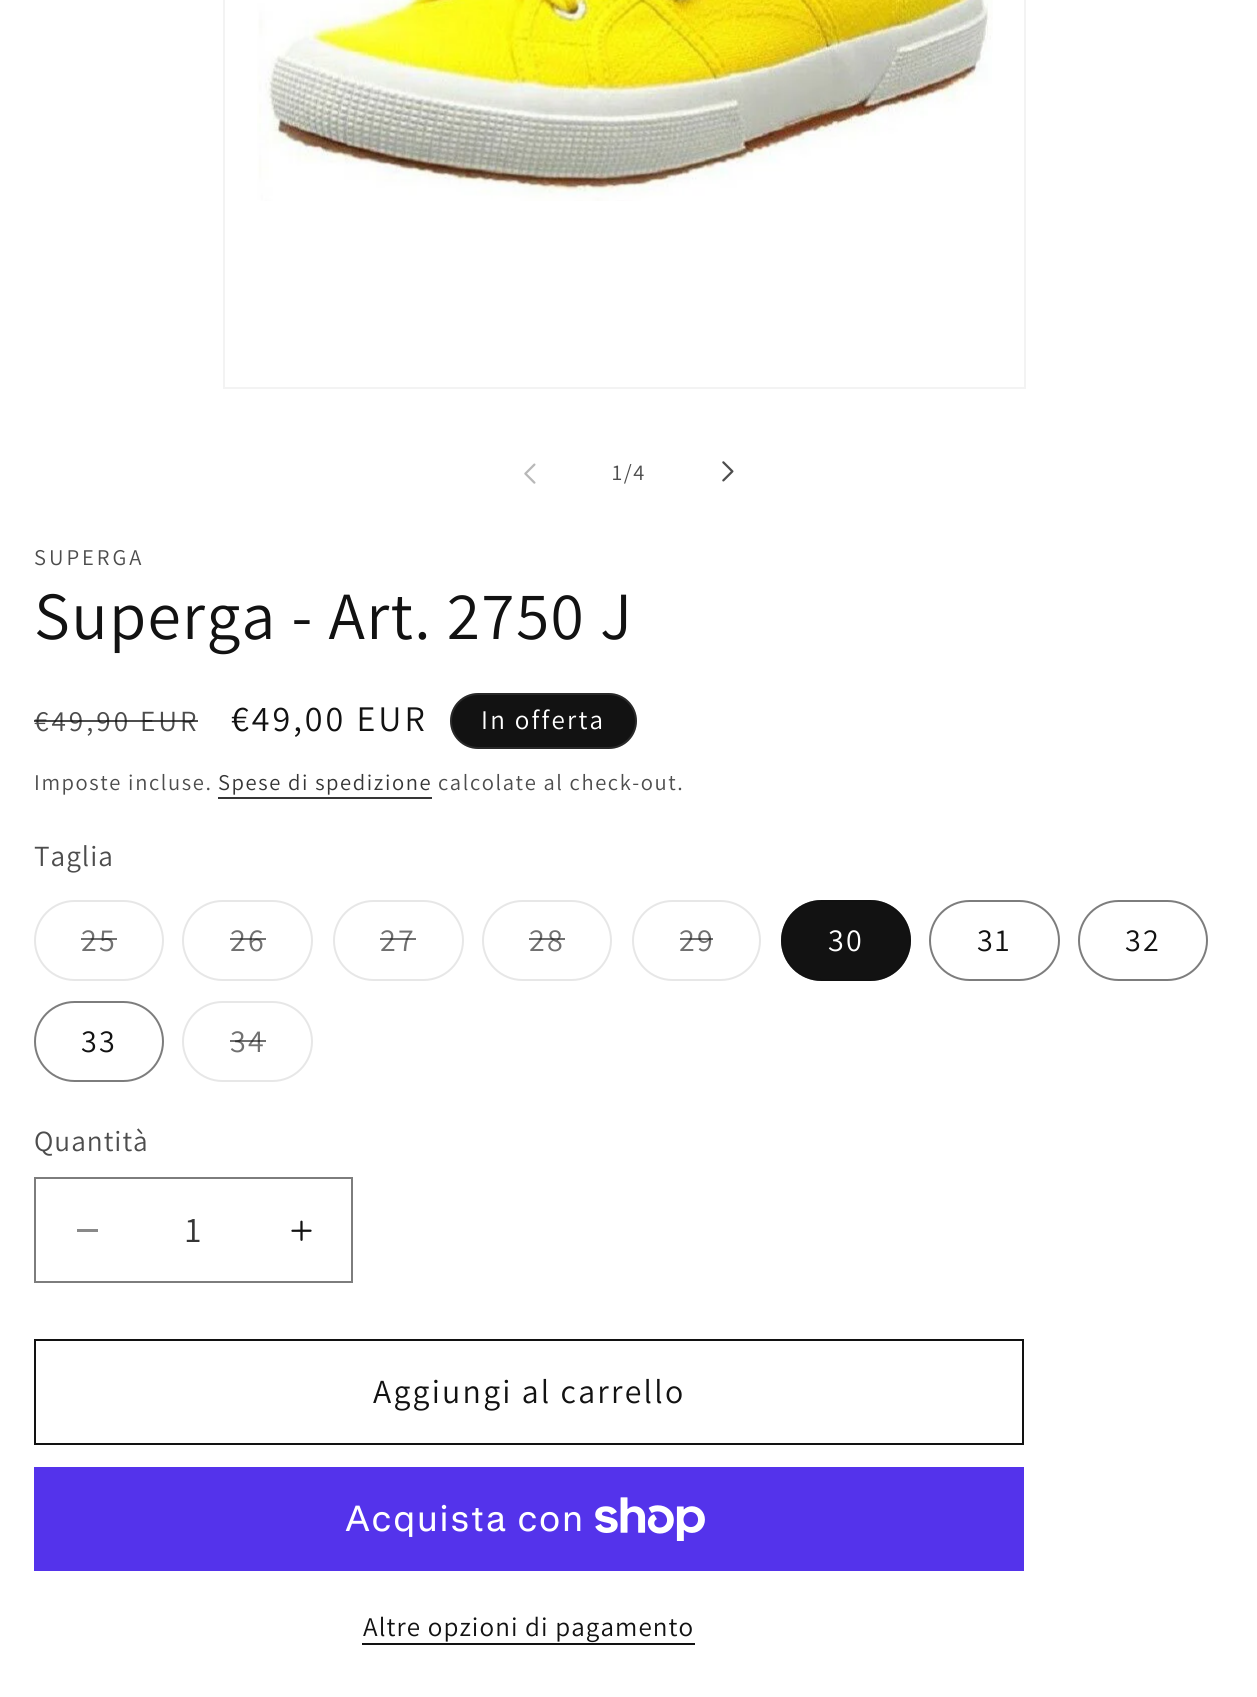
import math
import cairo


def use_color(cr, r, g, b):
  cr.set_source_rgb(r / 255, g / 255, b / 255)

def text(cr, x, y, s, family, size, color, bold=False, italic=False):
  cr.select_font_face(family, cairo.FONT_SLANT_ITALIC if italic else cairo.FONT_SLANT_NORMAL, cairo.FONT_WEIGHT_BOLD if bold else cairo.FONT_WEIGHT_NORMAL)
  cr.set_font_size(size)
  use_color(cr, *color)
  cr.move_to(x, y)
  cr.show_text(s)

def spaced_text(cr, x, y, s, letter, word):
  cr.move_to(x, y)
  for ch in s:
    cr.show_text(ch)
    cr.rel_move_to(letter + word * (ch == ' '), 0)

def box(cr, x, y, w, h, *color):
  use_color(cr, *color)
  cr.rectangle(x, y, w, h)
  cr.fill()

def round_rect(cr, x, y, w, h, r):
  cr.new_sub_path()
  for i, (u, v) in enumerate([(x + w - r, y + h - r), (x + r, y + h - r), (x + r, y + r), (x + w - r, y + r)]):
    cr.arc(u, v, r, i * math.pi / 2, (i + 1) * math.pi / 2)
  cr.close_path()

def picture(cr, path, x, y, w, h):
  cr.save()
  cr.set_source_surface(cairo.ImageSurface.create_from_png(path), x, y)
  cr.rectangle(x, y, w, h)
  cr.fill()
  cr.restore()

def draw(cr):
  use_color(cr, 255, 255, 255)
  cr.paint()
  cr.rectangle(224, -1, 801, 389)
  use_color(cr, 243, 243, 243)
  cr.stroke()
  picture(cr, "img_01.png", 257, 0, 736, 201)
  picture(cr, "img_02.png", 524, 463, 12, 21)
  picture(cr, "img_03.png", 722, 461, 12, 21)
  use_color(cr, 18, 18, 18)
  round_rect(cr, 450, 693, 187, 56, 28)
  cr.fill()
  round_rect(cr, 451, 694, 185, 54, 27)
  cr.set_source_rgba(1, 1, 1, 0.1)
  cr.stroke()
  box(cr, 218, 797, 214, 2, 54, 54, 54)
  round_rect(cr, 35, 901, 128, 79, 39.5)
  use_color(cr, 231, 231, 231)
  cr.stroke()
  round_rect(cr, 183, 901, 129, 79, 39.5)
  cr.stroke()
  round_rect(cr, 334, 901, 129, 79, 39.5)
  cr.stroke()
  round_rect(cr, 483, 901, 128, 79, 39.5)
  cr.stroke()
  round_rect(cr, 633, 901, 127, 79, 39.5)
  cr.stroke()
  use_color(cr, 18, 18, 18)
  round_rect(cr, 781, 900, 130, 81, 40.5)
  cr.fill()
  round_rect(cr, 782, 901, 128, 79, 39.5)
  cr.set_source_rgba(0.071, 0.071, 0.071, 0.55)
  cr.stroke()
  round_rect(cr, 930, 901, 129, 79, 39.5)
  use_color(cr, 125, 125, 125)
  cr.stroke()
  round_rect(cr, 1079, 901, 128, 79, 39.5)
  cr.stroke()
  round_rect(cr, 35, 1002, 128, 79, 39.5)
  cr.stroke()
  round_rect(cr, 183, 1002, 129, 79, 39.5)
  use_color(cr, 231, 231, 231)
  cr.stroke()
  box(cr, 77, 1229, 21, 3, 137, 137, 137)
  picture(cr, "img_04.png", 291, 1220, 21, 21)
  cr.rectangle(35, 1178, 317, 104)
  use_color(cr, 125, 125, 125)
  cr.stroke()
  cr.rectangle(35, 1340, 988, 104)
  use_color(cr, 18, 18, 18)
  cr.stroke()
  box(cr, 34, 1467, 990, 104, 84, 51, 235)
  picture(cr, "img_05.png", 595, 1497, 110, 44)
  box(cr, 362, 1643, 333, 2, 18, 18, 18)
  cr.select_font_face("Assistant")
  cr.set_font_size(22.5)
  use_color(cr, 77, 77, 77)
  spaced_text(cr, 612, 480, "1/4", 1.6, 0)
  spaced_text(cr, 34, 565, "SUPERGA", 3, 0)
  cr.set_font_size(67.5)
  use_color(cr, 18, 18, 18)
  spaced_text(cr, 34, 639, "Superga - Art. 2750 J", 1.35, 0)
  cr.set_font_size(29.25)
  use_color(cr, 77, 77, 77)
  spaced_text(cr, 34, 731, "€49,90 EUR", 3, 0)
  cr.set_source_rgba(0.071, 0.071, 0.071, 0.75)
  cr.rectangle(34, 720, 164, 2)
  cr.fill()
  cr.set_font_size(36)
  use_color(cr, 18, 18, 18)
  spaced_text(cr, 231, 731, "€49,00 EUR", 3, 0)
  cr.set_font_size(27)
  use_color(cr, 255, 255, 255)
  spaced_text(cr, 481, 729, "In offerta", 2.25, 0)
  cr.set_font_size(22.5)
  use_color(cr, 77, 77, 77)
  spaced_text(cr, 34, 790, "Imposte incluse.", 1.6, 0)
  use_color(cr, 54, 54, 54)
  spaced_text(cr, 218, 790, "Spese di spedizione", 1.6, 0)
  use_color(cr, 77, 77, 77)
  spaced_text(cr, 438, 790, "calcolate al check-out.", 1.6, 0)
  cr.set_font_size(29.25)
  spaced_text(cr, 34, 866, "Taglia", 1, 0)
  cr.set_font_size(32)
  use_color(cr, 113, 113, 113)
  spaced_text(cr, 81, 951, "25", 2.25, 0)
  cr.set_source_rgba(0.071, 0.071, 0.071, 0.6)
  cr.rectangle(81, 938, 36, 2)
  cr.fill()
  use_color(cr, 113, 113, 113)
  spaced_text(cr, 230, 951, "26", 2.25, 0)
  cr.set_source_rgba(0.071, 0.071, 0.071, 0.6)
  cr.rectangle(230, 938, 36, 2)
  cr.fill()
  use_color(cr, 113, 113, 113)
  spaced_text(cr, 380, 951, "27", 2.25, 0)
  cr.set_source_rgba(0.071, 0.071, 0.071, 0.6)
  cr.rectangle(380, 938, 36, 2)
  cr.fill()
  use_color(cr, 113, 113, 113)
  spaced_text(cr, 529, 951, "28", 2.25, 0)
  cr.set_source_rgba(0.071, 0.071, 0.071, 0.6)
  cr.rectangle(529, 938, 36, 2)
  cr.fill()
  use_color(cr, 113, 113, 113)
  spaced_text(cr, 679, 951, "29", 2.25, 0)
  cr.set_source_rgba(0.071, 0.071, 0.071, 0.6)
  cr.rectangle(680, 938, 33, 2)
  cr.fill()
  use_color(cr, 255, 255, 255)
  spaced_text(cr, 828, 951, "30", 2.25, 0)
  use_color(cr, 18, 18, 18)
  spaced_text(cr, 977, 951, "31", 2.25, 0)
  spaced_text(cr, 1125, 951, "32", 2.25, 0)
  spaced_text(cr, 81, 1052, "33", 2.25, 0)
  use_color(cr, 113, 113, 113)
  spaced_text(cr, 230, 1052, "34", 2.25, 0)
  cr.set_source_rgba(0.071, 0.071, 0.071, 0.6)
  cr.rectangle(230, 1040, 36, 2)
  cr.fill()
  cr.set_font_size(29.25)
  use_color(cr, 77, 77, 77)
  spaced_text(cr, 34, 1151, "Quantità", 1, 0)
  text(cr, 185, 1242, "1", "Assistant", 36, (54, 54, 54))
  cr.set_font_size(33.75)
  use_color(cr, 18, 18, 18)
  spaced_text(cr, 373, 1403, "Aggiungi al carrello", 2.25, 0)
  cr.select_font_face("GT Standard")
  cr.set_font_size(36)
  use_color(cr, 255, 255, 255)
  spaced_text(cr, 345, 1531, "Acquista con", 1.35, 0)
  cr.select_font_face("Assistant")
  cr.set_font_size(27)
  use_color(cr, 18, 18, 18)
  spaced_text(cr, 363, 1636, "Altre opzioni di pagamento", 1.1, 0)


surface = cairo.ImageSurface(cairo.FORMAT_RGB24, 1257, 1697)
cr = cairo.Context(surface)
options = cairo.FontOptions()
options.set_hint_metrics(cairo.HINT_METRICS_OFF)
options.set_hint_style(cairo.HINT_STYLE_NONE)
cr.set_font_options(options)
cr.set_miter_limit(4)
draw(cr)
surface.write_to_png("out.png")
